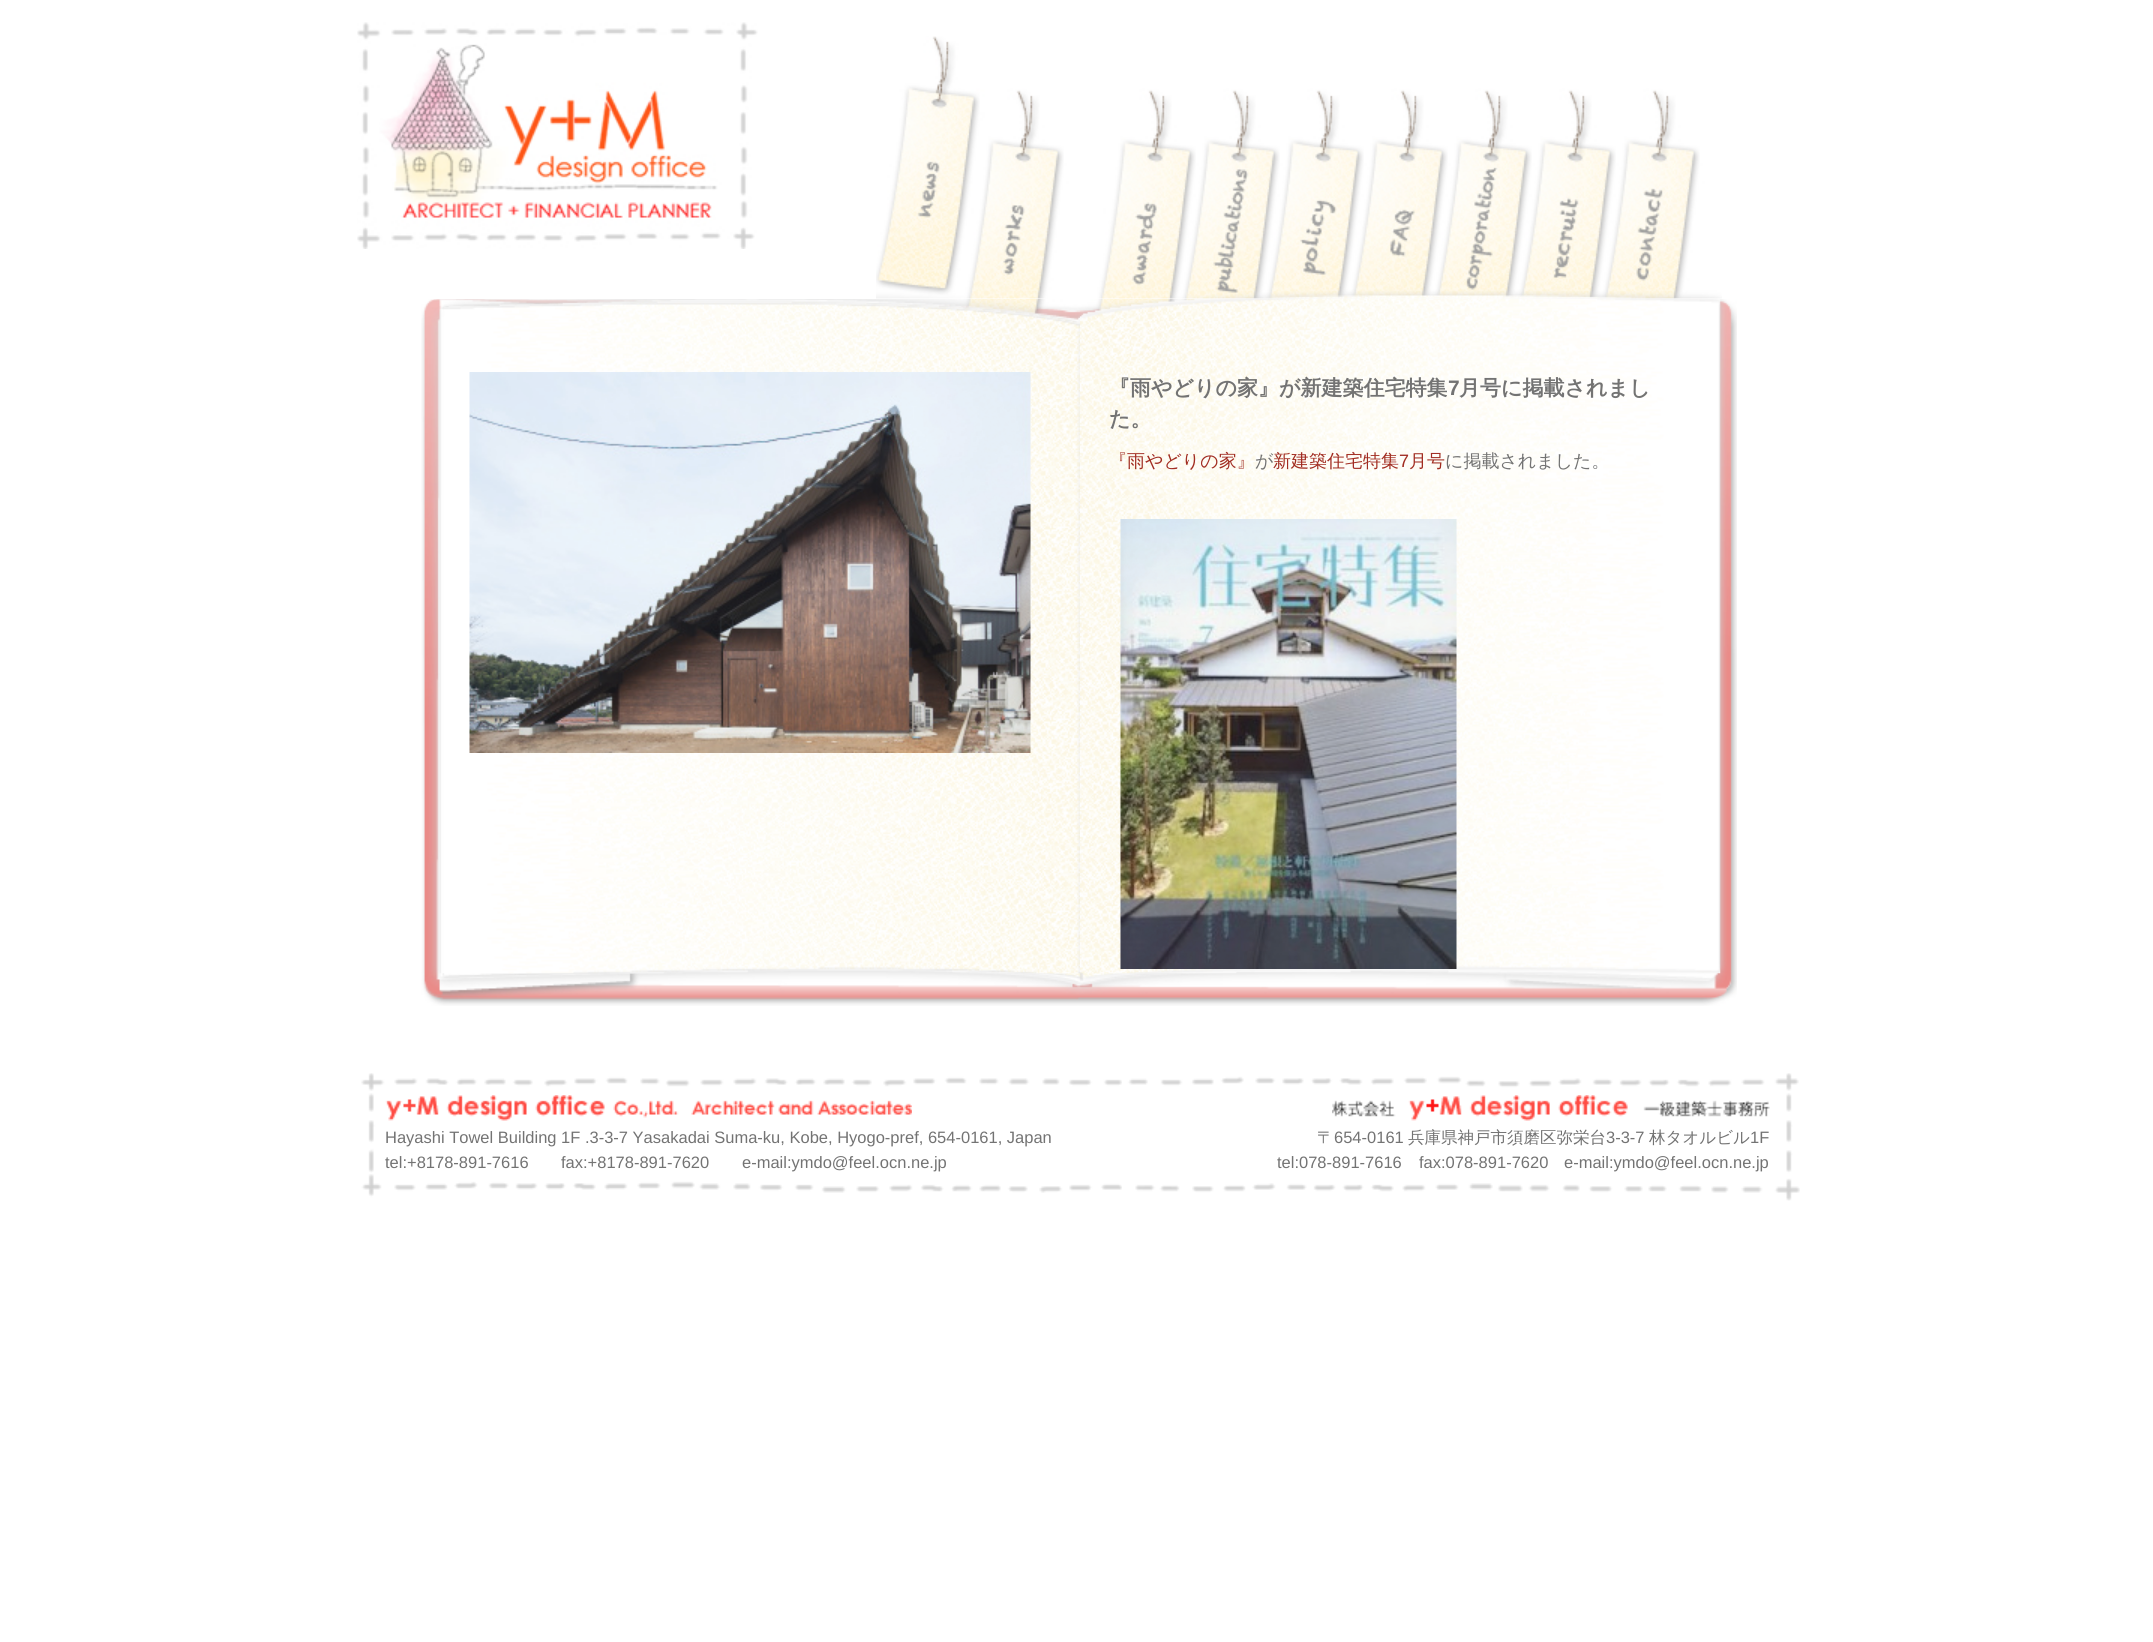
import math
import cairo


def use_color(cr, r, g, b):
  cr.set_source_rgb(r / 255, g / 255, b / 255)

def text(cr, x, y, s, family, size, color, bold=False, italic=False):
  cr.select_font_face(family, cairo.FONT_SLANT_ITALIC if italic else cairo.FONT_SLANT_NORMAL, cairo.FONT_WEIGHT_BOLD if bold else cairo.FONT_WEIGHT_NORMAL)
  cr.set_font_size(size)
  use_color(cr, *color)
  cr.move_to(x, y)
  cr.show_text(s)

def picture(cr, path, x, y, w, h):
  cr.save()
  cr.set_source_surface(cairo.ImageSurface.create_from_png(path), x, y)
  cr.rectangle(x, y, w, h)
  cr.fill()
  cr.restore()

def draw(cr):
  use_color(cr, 255, 255, 255)
  cr.paint()
  picture(cr, "img_01.png", 357, 22, 401, 227)
  picture(cr, "img_02.png", 876, 36, 846, 263)
  picture(cr, "img_03.png", 421, 299, 1316, 707)
  picture(cr, "img_04.png", 439, 301, 641, 673)
  picture(cr, "img_05.png", 469, 372, 562, 381)
  picture(cr, "img_06.png", 1080, 298, 641, 676)
  picture(cr, "img_07.png", 1120, 519, 337, 450)
  picture(cr, "img_08.png", 361, 1073, 1439, 128)
  picture(cr, "img_09.png", 385, 1095, 527, 26)
  picture(cr, "img_10.png", 1332, 1095, 438, 26)
  text(cr, 1109, 395, "『雨やどりの家』が新建築住宅特集", "WenQuanYi Zen Hei", 21, (115, 115, 115), bold=True)
  text(cr, 1448, 395, "7", "Liberation Sans", 21, (115, 115, 115), bold=True)
  text(cr, 1459, 395, "月号に掲載されまし", "WenQuanYi Zen Hei", 21, (115, 115, 115), bold=True)
  text(cr, 1109, 426, "た。", "WenQuanYi Zen Hei", 21, (115, 115, 115), bold=True)
  text(cr, 1109, 467, "『雨やどりの家』", "WenQuanYi Zen Hei Medium", 18, (161, 44, 33))
  text(cr, 1255, 467, "が", "WenQuanYi Zen Hei Medium", 18, (115, 115, 115))
  text(cr, 1273, 467, "新建築住宅特集", "WenQuanYi Zen Hei Medium", 18, (161, 44, 33))
  text(cr, 1399, 467, "7", "Liberation Sans", 18, (161, 44, 33))
  text(cr, 1409, 467, "月号", "WenQuanYi Zen Hei Medium", 18, (161, 44, 33))
  text(cr, 1445, 467, "に掲載されました。", "WenQuanYi Zen Hei Medium", 18, (115, 115, 115))
  text(cr, 385, 1143, "Hayashi Towel Building 1F .3-3-7 Yasakadai Suma-ku, Kobe, Hyogo-pref, 654-0161, Japan", "Liberation Sans", 16.5, (115, 115, 115))
  text(cr, 385, 1168, "tel:+8178-891-7616", "Liberation Sans", 16.5, (115, 115, 115))
  text(cr, 561, 1168, "fax:+8178-891-7620", "Liberation Sans", 16.5, (115, 115, 115))
  text(cr, 742, 1168, "e-mail:ymdo@feel.ocn.ne.jp", "Liberation Sans", 16.5, (115, 115, 115))
  text(cr, 1317, 1143, "〒", "WenQuanYi Zen Hei Medium", 16.5, (115, 115, 115))
  text(cr, 1334, 1143, "654-0161", "Liberation Sans", 16.5, (115, 115, 115))
  text(cr, 1408, 1143, "兵庫県神戸市須磨区弥栄台", "WenQuanYi Zen Hei Medium", 16.5, (115, 115, 115))
  text(cr, 1606, 1143, "3-3-7", "Liberation Sans", 16.5, (115, 115, 115))
  text(cr, 1649, 1143, "林タオルビル", "WenQuanYi Zen Hei Medium", 16.5, (115, 115, 115))
  text(cr, 1750, 1143, "1F", "Liberation Sans", 16.5, (115, 115, 115))
  text(cr, 1277, 1168, "tel:078-891-7616", "Liberation Sans", 16.5, (115, 115, 115))
  text(cr, 1419, 1168, "fax:078-891-7620", "Liberation Sans", 16.5, (115, 115, 115))
  text(cr, 1564, 1168, "e-mail:ymdo@feel.ocn.ne.jp", "Liberation Sans", 16.5, (115, 115, 115))


surface = cairo.ImageSurface(cairo.FORMAT_RGB24, 2153, 1642)
cr = cairo.Context(surface)
options = cairo.FontOptions()
options.set_hint_metrics(cairo.HINT_METRICS_OFF)
options.set_hint_style(cairo.HINT_STYLE_NONE)
cr.set_font_options(options)
cr.set_miter_limit(4)
draw(cr)
surface.write_to_png("out.png")
